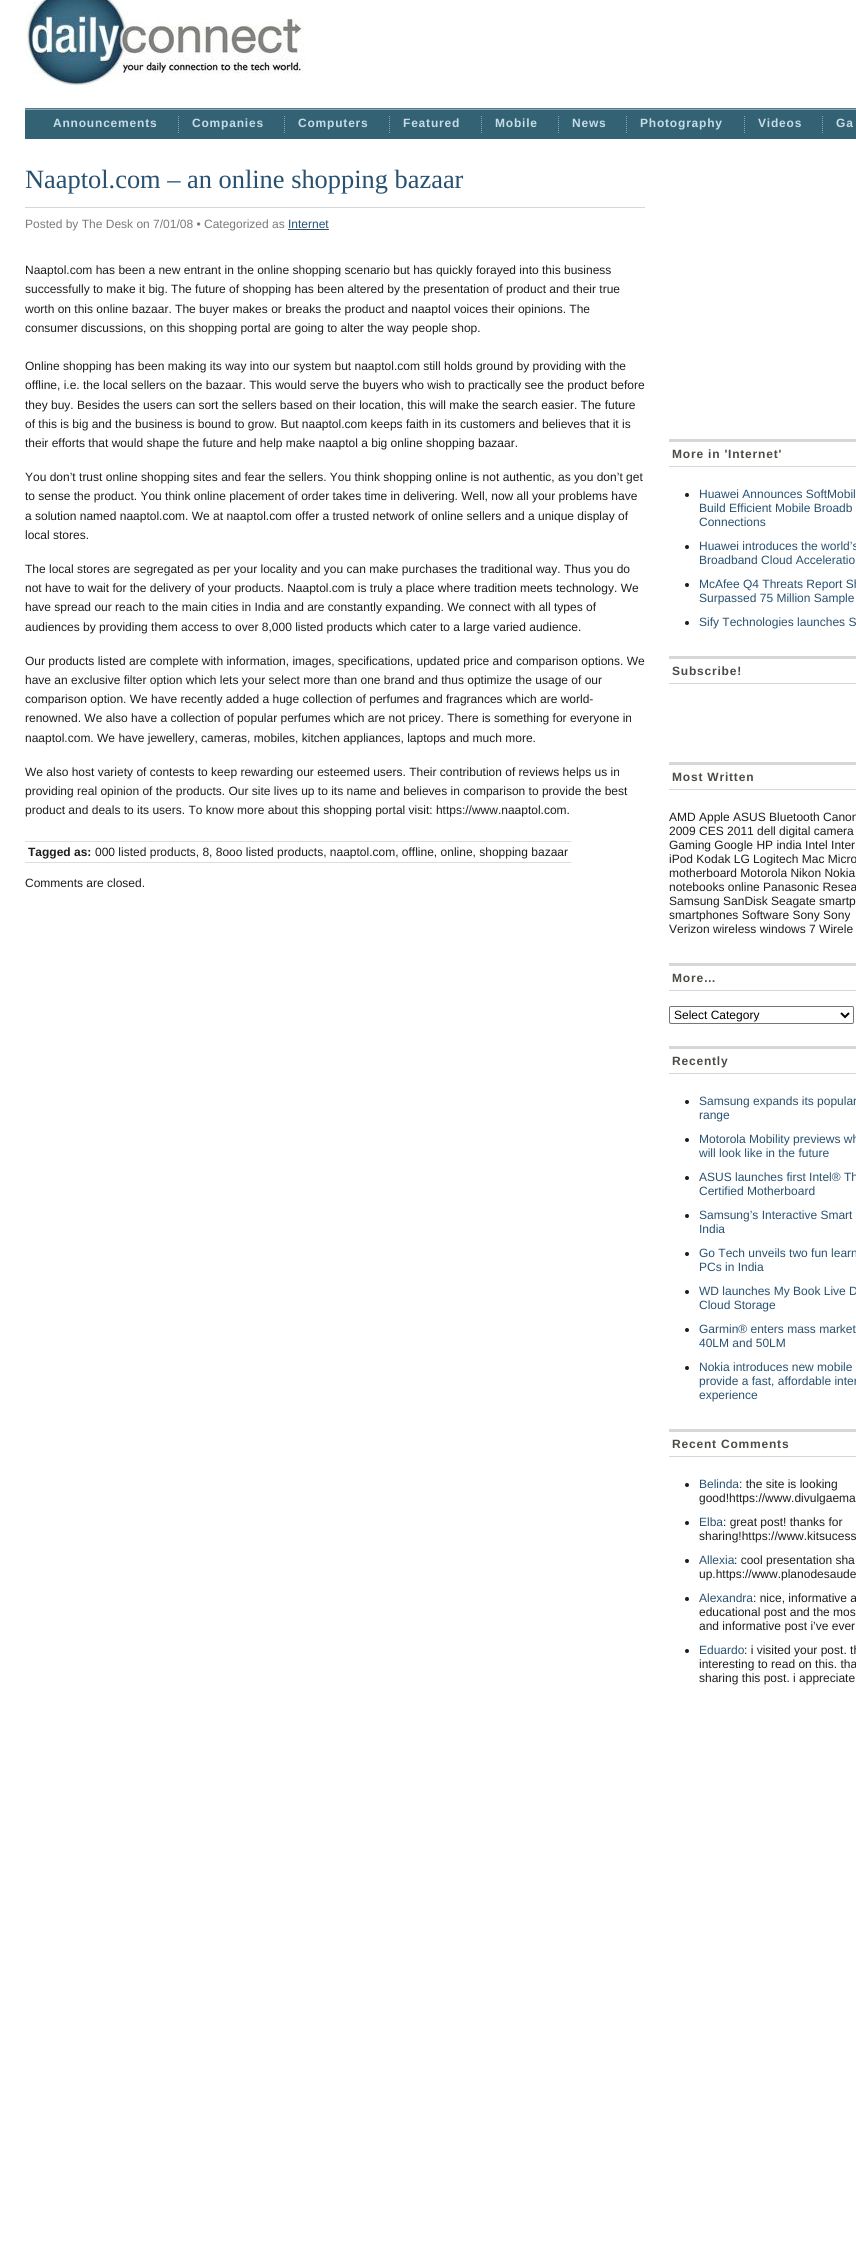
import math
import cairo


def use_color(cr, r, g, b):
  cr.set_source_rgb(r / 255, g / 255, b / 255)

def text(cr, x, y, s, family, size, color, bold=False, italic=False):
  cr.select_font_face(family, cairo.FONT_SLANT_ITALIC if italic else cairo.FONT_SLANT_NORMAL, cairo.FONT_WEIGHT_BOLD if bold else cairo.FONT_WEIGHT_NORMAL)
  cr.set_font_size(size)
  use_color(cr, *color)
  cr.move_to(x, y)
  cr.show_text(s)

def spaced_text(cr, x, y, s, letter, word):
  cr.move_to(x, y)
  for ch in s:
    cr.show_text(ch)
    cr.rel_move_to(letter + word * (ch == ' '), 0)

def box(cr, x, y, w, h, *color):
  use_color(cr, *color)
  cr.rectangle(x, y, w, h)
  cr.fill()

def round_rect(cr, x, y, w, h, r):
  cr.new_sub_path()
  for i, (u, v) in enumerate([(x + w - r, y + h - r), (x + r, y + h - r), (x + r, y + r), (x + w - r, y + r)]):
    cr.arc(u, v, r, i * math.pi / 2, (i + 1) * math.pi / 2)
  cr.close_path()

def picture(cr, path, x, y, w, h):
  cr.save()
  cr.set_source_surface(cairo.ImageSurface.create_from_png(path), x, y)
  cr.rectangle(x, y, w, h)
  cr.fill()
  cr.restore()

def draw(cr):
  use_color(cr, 255, 255, 255)
  cr.paint()
  box(cr, 25, 108, 831, 1, 96, 123, 136)
  picture(cr, "img_01.png", 25, 0, 280, 86)
  box(cr, 25, 110, 831, 29, 51, 98, 116)
  box(cr, 25, 109, 831, 1, 131, 168, 185)
  cr.new_path()
  cr.move_to(178.5, 116)
  cr.line_to(178.5, 133)
  cr.set_line_width(1)
  cr.set_dash([1, 1])
  cr.stroke()
  cr.new_path()
  cr.move_to(284.5, 116)
  cr.line_to(284.5, 133)
  cr.stroke()
  cr.new_path()
  cr.move_to(389.5, 116)
  cr.line_to(389.5, 133)
  cr.stroke()
  cr.new_path()
  cr.move_to(481.5, 116)
  cr.line_to(481.5, 133)
  cr.stroke()
  cr.new_path()
  cr.move_to(558.5, 116)
  cr.line_to(558.5, 133)
  cr.stroke()
  cr.new_path()
  cr.move_to(626.5, 116)
  cr.line_to(626.5, 133)
  cr.stroke()
  cr.new_path()
  cr.move_to(744.5, 116)
  cr.line_to(744.5, 133)
  cr.stroke()
  cr.new_path()
  cr.move_to(822.5, 116)
  cr.line_to(822.5, 133)
  cr.stroke()
  box(cr, 25, 207, 620, 1, 215, 215, 215)
  box(cr, 288, 229, 41, 1, 40, 81, 113)
  box(cr, 25, 841, 546, 1, 221, 221, 221)
  box(cr, 25, 862, 546, 1, 221, 221, 221)
  box(cr, 669, 439, 187, 3, 215, 215, 215)
  box(cr, 669, 466, 187, 1, 215, 215, 215)
  use_color(cr, 29, 29, 29)
  cr.arc(687, 495, 2, 0, 2 * math.pi)
  cr.fill()
  cr.arc(687, 547, 2, 0, 2 * math.pi)
  cr.fill()
  cr.arc(687, 585, 2, 0, 2 * math.pi)
  cr.fill()
  cr.arc(687, 623, 2, 0, 2 * math.pi)
  cr.fill()
  box(cr, 669, 656, 187, 3, 215, 215, 215)
  box(cr, 669, 683, 187, 1, 215, 215, 215)
  box(cr, 669, 762, 187, 3, 215, 215, 215)
  box(cr, 669, 789, 187, 1, 215, 215, 215)
  box(cr, 669, 963, 187, 3, 215, 215, 215)
  box(cr, 669, 990, 187, 1, 215, 215, 215)
  round_rect(cr, 669.5, 1006.5, 184, 17, 1.5)
  use_color(cr, 118, 118, 118)
  cr.set_dash([])
  cr.stroke()
  cr.new_path()
  cr.move_to(841, 1013)
  cr.line_to(845, 1017)
  cr.line_to(849, 1013)
  use_color(cr, 0, 0, 0)
  cr.set_line_width(2)
  cr.stroke()
  box(cr, 669, 1046, 187, 3, 215, 215, 215)
  box(cr, 669, 1073, 187, 1, 215, 215, 215)
  use_color(cr, 29, 29, 29)
  cr.arc(687, 1102, 2, 0, 2 * math.pi)
  cr.fill()
  cr.arc(687, 1140, 2, 0, 2 * math.pi)
  cr.fill()
  cr.arc(687, 1178, 2, 0, 2 * math.pi)
  cr.fill()
  cr.arc(687, 1216, 2, 0, 2 * math.pi)
  cr.fill()
  cr.arc(687, 1254, 2, 0, 2 * math.pi)
  cr.fill()
  cr.arc(687, 1292, 2, 0, 2 * math.pi)
  cr.fill()
  cr.arc(687, 1330, 2, 0, 2 * math.pi)
  cr.fill()
  cr.arc(687, 1368, 2, 0, 2 * math.pi)
  cr.fill()
  box(cr, 669, 1429, 187, 3, 215, 215, 215)
  box(cr, 669, 1456, 187, 1, 215, 215, 215)
  use_color(cr, 29, 29, 29)
  cr.arc(687, 1485, 2, 0, 2 * math.pi)
  cr.fill()
  cr.arc(687, 1523, 2, 0, 2 * math.pi)
  cr.fill()
  cr.arc(687, 1561, 2, 0, 2 * math.pi)
  cr.fill()
  cr.arc(687, 1599, 2, 0, 2 * math.pi)
  cr.fill()
  cr.arc(687, 1651, 2, 0, 2 * math.pi)
  cr.fill()
  cr.select_font_face("Liberation Sans", cairo.FONT_SLANT_NORMAL, cairo.FONT_WEIGHT_BOLD)
  cr.set_font_size(12)
  use_color(cr, 198, 220, 230)
  spaced_text(cr, 53, 127, "Announcements", 0.8, 0)
  spaced_text(cr, 192, 127, "Companies", 0.8, 0)
  spaced_text(cr, 298, 127, "Computers", 0.8, 0)
  spaced_text(cr, 403, 127, "Featured", 0.8, 0)
  spaced_text(cr, 495, 127, "Mobile", 0.8, 0)
  spaced_text(cr, 572, 127, "News", 0.8, 0)
  spaced_text(cr, 640, 127, "Photography", 0.8, 0)
  spaced_text(cr, 758, 127, "Videos", 0.8, 0)
  spaced_text(cr, 836, 127, "Ga", 0.8, 0)
  text(cr, 25, 188, "Naaptol.com – an online shopping bazaar", "Liberation Serif", 26.4, (40, 81, 113))
  text(cr, 25, 228, "Posted by The Desk on 7/01/08 • Categorized as", "Liberation Sans", 12, (122, 122, 122))
  text(cr, 288, 228, "Internet", "Liberation Sans", 12, (40, 81, 113))
  text(cr, 25, 274, "Naaptol.com has been a new entrant in the online shopping scenario but has quickly forayed into this business", "Liberation Sans", 12, (29, 29, 29))
  text(cr, 25, 293, "successfully to make it big. The future of shopping has been altered by the presentation of product and their true", "Liberation Sans", 12, (29, 29, 29))
  text(cr, 25, 313, "worth on this online bazaar. The buyer makes or breaks the product and naaptol voices their opinions. The", "Liberation Sans", 12, (29, 29, 29))
  text(cr, 25, 332, "consumer discussions, on this shopping portal are going to alter the way people shop.", "Liberation Sans", 12, (29, 29, 29))
  text(cr, 25, 370, "Online shopping has been making its way into our system but naaptol.com still holds ground by providing with the", "Liberation Sans", 12, (29, 29, 29))
  text(cr, 25, 389, "offline, i.e. the local sellers on the bazaar. This would serve the buyers who wish to practically see the product before", "Liberation Sans", 12, (29, 29, 29))
  text(cr, 25, 409, "they buy. Besides the users can sort the sellers based on their location, this will make the search easier. The future", "Liberation Sans", 12, (29, 29, 29))
  text(cr, 25, 428, "of this is big and the business is bound to grow. But naaptol.com keeps faith in its customers and believes that it is", "Liberation Sans", 12, (29, 29, 29))
  text(cr, 25, 447, "their efforts that would shape the future and help make naaptol a big online shopping bazaar.", "Liberation Sans", 12, (29, 29, 29))
  text(cr, 25, 481, "You don’t trust online shopping sites and fear the sellers. You think shopping online is not authentic, as you don’t get", "Liberation Sans", 12, (29, 29, 29))
  text(cr, 25, 500, "to sense the product. You think online placement of order takes time in delivering. Well, now all your problems have", "Liberation Sans", 12, (29, 29, 29))
  text(cr, 25, 520, "a solution named naaptol.com. We at naaptol.com offer a trusted network of online sellers and a unique display of", "Liberation Sans", 12, (29, 29, 29))
  text(cr, 25, 539, "local stores.", "Liberation Sans", 12, (29, 29, 29))
  text(cr, 25, 573, "The local stores are segregated as per your locality and you can make purchases the traditional way. Thus you do", "Liberation Sans", 12, (29, 29, 29))
  text(cr, 25, 592, "not have to wait for the delivery of your products. Naaptol.com is truly a place where tradition meets technology. We", "Liberation Sans", 12, (29, 29, 29))
  text(cr, 25, 611, "have spread our reach to the main cities in India and are constantly expanding. We connect with all types of", "Liberation Sans", 12, (29, 29, 29))
  text(cr, 25, 631, "audiences by providing them access to over 8,000 listed products which cater to a large varied audience.", "Liberation Sans", 12, (29, 29, 29))
  text(cr, 25, 665, "Our products listed are complete with information, images, specifications, updated price and comparison options. We", "Liberation Sans", 12, (29, 29, 29))
  text(cr, 25, 684, "have an exclusive filter option which lets your select more than one brand and thus optimize the usage of our", "Liberation Sans", 12, (29, 29, 29))
  text(cr, 25, 703, "comparison option. We have recently added a huge collection of perfumes and fragrances which are world-", "Liberation Sans", 12, (29, 29, 29))
  text(cr, 25, 722, "renowned. We also have a collection of popular perfumes which are not pricey. There is something for everyone in", "Liberation Sans", 12, (29, 29, 29))
  text(cr, 25, 742, "naaptol.com. We have jewellery, cameras, mobiles, kitchen appliances, laptops and much more.", "Liberation Sans", 12, (29, 29, 29))
  text(cr, 25, 776, "We also host variety of contests to keep rewarding our esteemed users. Their contribution of reviews helps us in", "Liberation Sans", 12, (29, 29, 29))
  text(cr, 25, 795, "providing real opinion of the products. Our site lives up to its name and believes in comparison to provide the best", "Liberation Sans", 12, (29, 29, 29))
  text(cr, 25, 814, "product and deals to its users. To know more about this shopping portal visit: https://www.naaptol.com.", "Liberation Sans", 12, (29, 29, 29))
  text(cr, 28, 856, "Tagged as:", "Liberation Sans", 12, (29, 29, 29), bold=True)
  text(cr, 95, 856, "000 listed products, 8, 8ooo listed products, naaptol.com, offline, online, shopping bazaar", "Liberation Sans", 12, (29, 29, 29))
  text(cr, 25, 887, "Comments are closed.", "Liberation Sans", 12, (29, 29, 29))
  cr.select_font_face("Liberation Sans", cairo.FONT_SLANT_NORMAL, cairo.FONT_WEIGHT_BOLD)
  use_color(cr, 76, 75, 70)
  spaced_text(cr, 672, 458, "More in 'Internet'", 0.8, 0)
  text(cr, 699, 498, "Huawei Announces SoftMobil", "Liberation Sans", 12, (40, 81, 113))
  text(cr, 699, 512, "Build Efficient Mobile Broadb", "Liberation Sans", 12, (40, 81, 113))
  text(cr, 699, 526, "Connections", "Liberation Sans", 12, (40, 81, 113))
  text(cr, 699, 550, "Huawei introduces the world’s", "Liberation Sans", 12, (40, 81, 113))
  text(cr, 699, 564, "Broadband Cloud Acceleratio", "Liberation Sans", 12, (40, 81, 113))
  text(cr, 699, 588, "McAfee Q4 Threats Report Sh", "Liberation Sans", 12, (40, 81, 113))
  text(cr, 699, 602, "Surpassed 75 Million Sample", "Liberation Sans", 12, (40, 81, 113))
  text(cr, 699, 626, "Sify Technologies launches S", "Liberation Sans", 12, (40, 81, 113))
  cr.select_font_face("Liberation Sans", cairo.FONT_SLANT_NORMAL, cairo.FONT_WEIGHT_BOLD)
  use_color(cr, 76, 75, 70)
  spaced_text(cr, 672, 675, "Subscribe!", 0.8, 0)
  spaced_text(cr, 672, 781, "Most Written", 0.8, 0)
  text(cr, 669, 821, "AMD Apple ASUS Bluetooth Canon", "Liberation Sans", 12, (29, 29, 29))
  text(cr, 669, 835, "2009 CES 2011 dell digital camera", "Liberation Sans", 12, (29, 29, 29))
  text(cr, 669, 849, "Gaming Google HP india Intel Inter", "Liberation Sans", 12, (29, 29, 29))
  text(cr, 669, 863, "iPod Kodak LG Logitech Mac Micro", "Liberation Sans", 12, (29, 29, 29))
  text(cr, 669, 877, "motherboard Motorola Nikon Nokia", "Liberation Sans", 12, (29, 29, 29))
  text(cr, 669, 891, "notebooks online Panasonic Resea", "Liberation Sans", 12, (29, 29, 29))
  text(cr, 669, 905, "Samsung SanDisk Seagate smartp", "Liberation Sans", 12, (29, 29, 29))
  text(cr, 669, 919, "smartphones Software Sony Sony", "Liberation Sans", 12, (29, 29, 29))
  text(cr, 669, 933, "Verizon wireless windows 7 Wirele", "Liberation Sans", 12, (29, 29, 29))
  cr.select_font_face("Liberation Sans", cairo.FONT_SLANT_NORMAL, cairo.FONT_WEIGHT_BOLD)
  use_color(cr, 76, 75, 70)
  spaced_text(cr, 672, 982, "More…", 0.8, 0)
  text(cr, 674, 1019, "Select Category", "Liberation Sans", 12, (0, 0, 0))
  cr.select_font_face("Liberation Sans", cairo.FONT_SLANT_NORMAL, cairo.FONT_WEIGHT_BOLD)
  use_color(cr, 76, 75, 70)
  spaced_text(cr, 672, 1065, "Recently", 0.8, 0)
  text(cr, 699, 1105, "Samsung expands its popular", "Liberation Sans", 12, (40, 81, 113))
  text(cr, 699, 1119, "range", "Liberation Sans", 12, (40, 81, 113))
  text(cr, 699, 1143, "Motorola Mobility previews wh", "Liberation Sans", 12, (40, 81, 113))
  text(cr, 699, 1157, "will look like in the future", "Liberation Sans", 12, (40, 81, 113))
  text(cr, 699, 1181, "ASUS launches first Intel® Th", "Liberation Sans", 12, (40, 81, 113))
  text(cr, 699, 1195, "Certified Motherboard", "Liberation Sans", 12, (40, 81, 113))
  text(cr, 699, 1219, "Samsung’s Interactive Smart", "Liberation Sans", 12, (40, 81, 113))
  text(cr, 699, 1233, "India", "Liberation Sans", 12, (40, 81, 113))
  text(cr, 699, 1257, "Go Tech unveils two fun learn", "Liberation Sans", 12, (40, 81, 113))
  text(cr, 699, 1271, "PCs in India", "Liberation Sans", 12, (40, 81, 113))
  text(cr, 699, 1295, "WD launches My Book Live D", "Liberation Sans", 12, (40, 81, 113))
  text(cr, 699, 1309, "Cloud Storage", "Liberation Sans", 12, (40, 81, 113))
  text(cr, 699, 1333, "Garmin® enters mass market", "Liberation Sans", 12, (40, 81, 113))
  text(cr, 699, 1347, "40LM and 50LM", "Liberation Sans", 12, (40, 81, 113))
  text(cr, 699, 1371, "Nokia introduces new mobile", "Liberation Sans", 12, (40, 81, 113))
  text(cr, 699, 1385, "provide a fast, affordable inter", "Liberation Sans", 12, (40, 81, 113))
  text(cr, 699, 1399, "experience", "Liberation Sans", 12, (40, 81, 113))
  cr.select_font_face("Liberation Sans", cairo.FONT_SLANT_NORMAL, cairo.FONT_WEIGHT_BOLD)
  use_color(cr, 76, 75, 70)
  spaced_text(cr, 672, 1448, "Recent Comments", 0.8, 0)
  text(cr, 699, 1488, "Belinda", "Liberation Sans", 12, (40, 81, 113))
  text(cr, 739, 1488, ": the site is looking", "Liberation Sans", 12, (29, 29, 29))
  text(cr, 699, 1502, "good!https://www.divulgaema", "Liberation Sans", 12, (29, 29, 29))
  text(cr, 699, 1526, "Elba", "Liberation Sans", 12, (40, 81, 113))
  text(cr, 723, 1526, ": great post! thanks for", "Liberation Sans", 12, (29, 29, 29))
  text(cr, 699, 1540, "sharing!https://www.kitsucess", "Liberation Sans", 12, (29, 29, 29))
  text(cr, 699, 1564, "Allexia", "Liberation Sans", 12, (40, 81, 113))
  text(cr, 734, 1564, ": cool presentation sha", "Liberation Sans", 12, (29, 29, 29))
  text(cr, 699, 1578, "up.https://www.planodesaude", "Liberation Sans", 12, (29, 29, 29))
  text(cr, 699, 1602, "Alexandra", "Liberation Sans", 12, (40, 81, 113))
  text(cr, 753, 1602, ": nice, informative a", "Liberation Sans", 12, (29, 29, 29))
  text(cr, 699, 1616, "educational post and the mos", "Liberation Sans", 12, (29, 29, 29))
  text(cr, 699, 1630, "and informative post i’ve ever", "Liberation Sans", 12, (29, 29, 29))
  text(cr, 699, 1654, "Eduardo", "Liberation Sans", 12, (40, 81, 113))
  text(cr, 744, 1654, ": i visited your post. th", "Liberation Sans", 12, (29, 29, 29))
  text(cr, 699, 1668, "interesting to read on this. tha", "Liberation Sans", 12, (29, 29, 29))
  text(cr, 699, 1682, "sharing this post. i appreciate", "Liberation Sans", 12, (29, 29, 29))


surface = cairo.ImageSurface(cairo.FORMAT_RGB24, 856, 2254)
cr = cairo.Context(surface)
options = cairo.FontOptions()
options.set_hint_metrics(cairo.HINT_METRICS_OFF)
options.set_hint_style(cairo.HINT_STYLE_NONE)
cr.set_font_options(options)
cr.set_miter_limit(4)
draw(cr)
surface.write_to_png("out.png")
